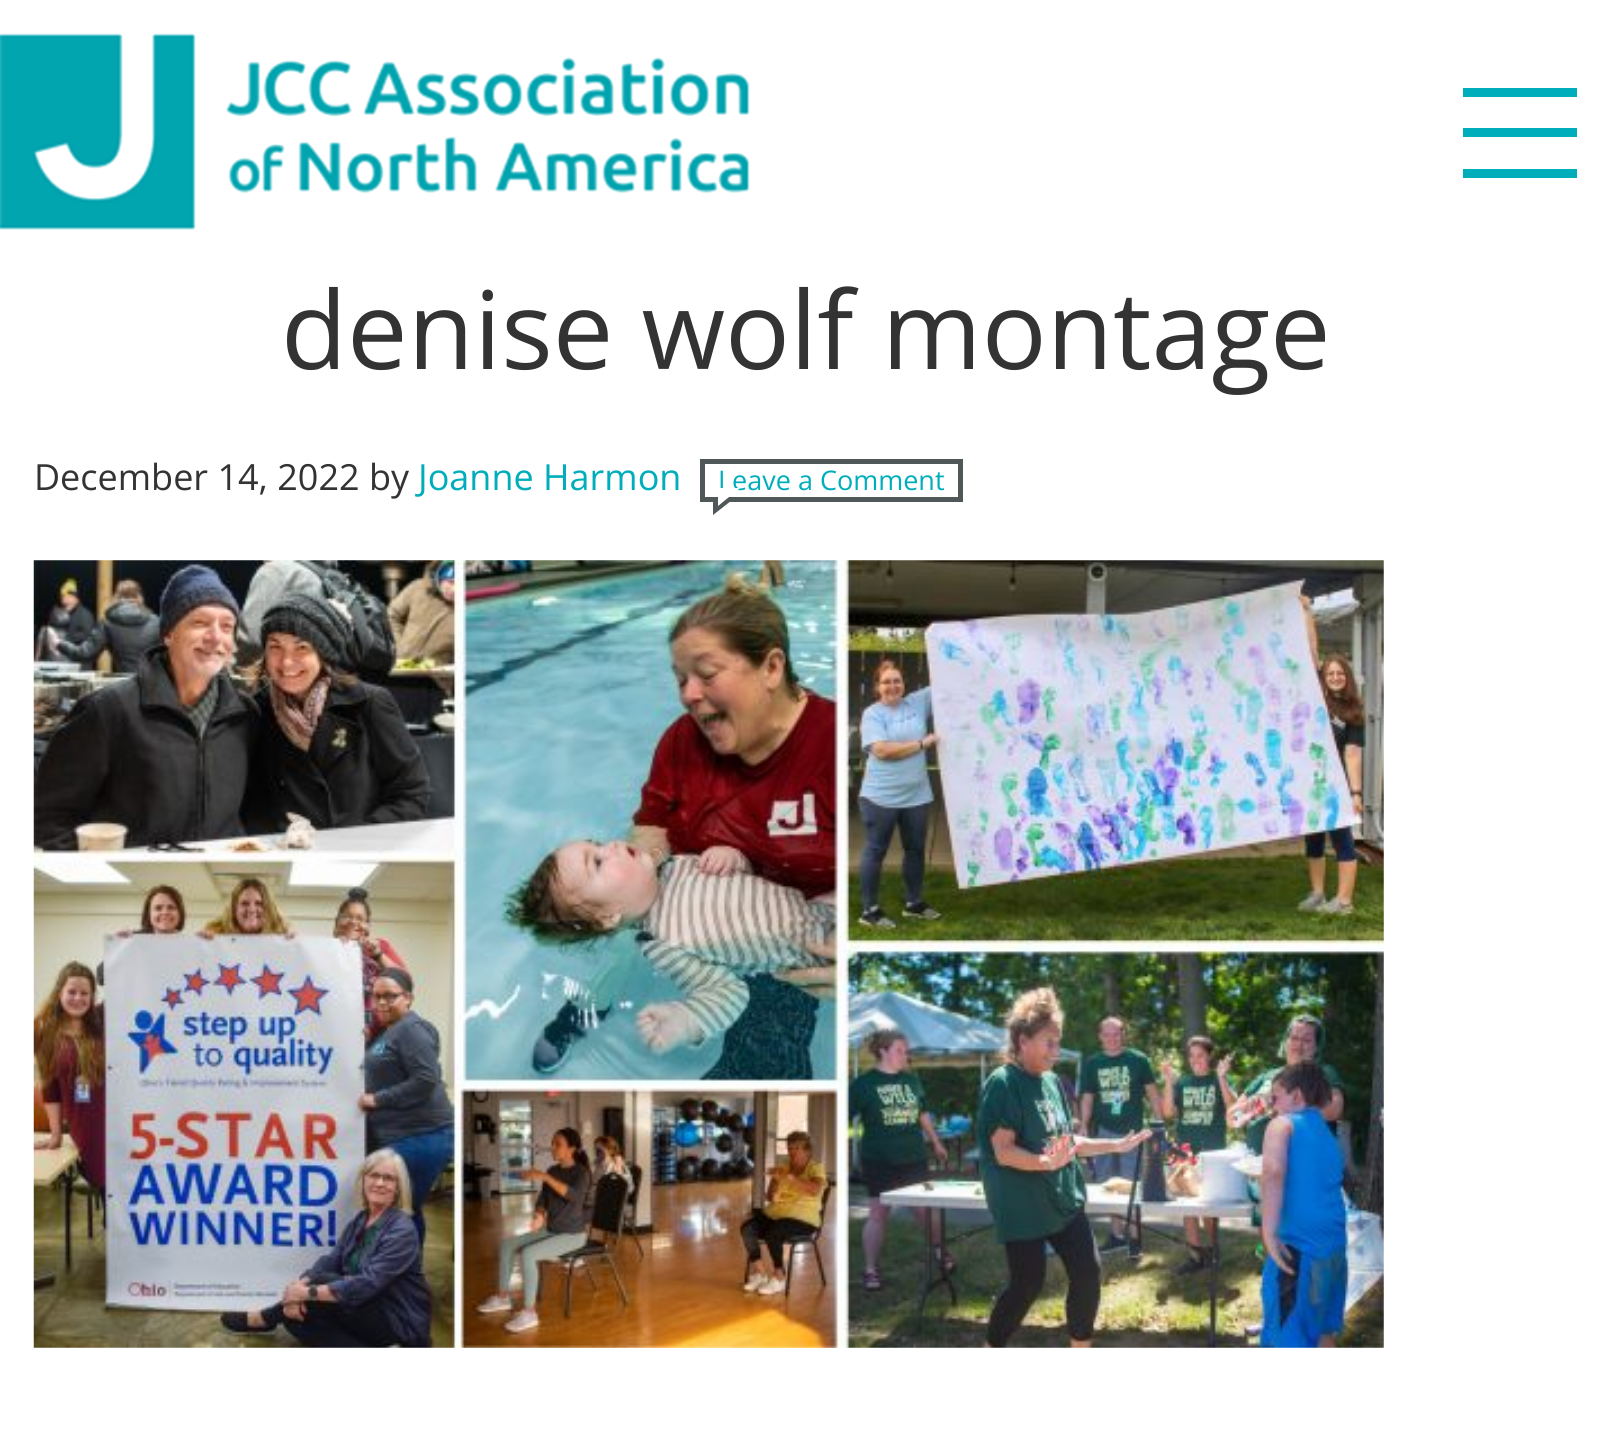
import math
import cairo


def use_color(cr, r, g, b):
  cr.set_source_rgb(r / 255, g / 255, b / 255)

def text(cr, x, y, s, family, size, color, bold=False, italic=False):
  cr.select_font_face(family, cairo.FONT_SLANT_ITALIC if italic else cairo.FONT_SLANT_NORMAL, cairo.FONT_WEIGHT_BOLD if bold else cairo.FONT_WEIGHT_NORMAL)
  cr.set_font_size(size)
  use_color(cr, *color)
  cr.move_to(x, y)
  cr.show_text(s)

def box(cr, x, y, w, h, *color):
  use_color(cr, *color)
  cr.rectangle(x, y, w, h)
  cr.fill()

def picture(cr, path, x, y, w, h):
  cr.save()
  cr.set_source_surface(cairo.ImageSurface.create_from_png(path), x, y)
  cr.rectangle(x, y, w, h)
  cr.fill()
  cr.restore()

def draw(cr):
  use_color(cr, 255, 255, 255)
  cr.paint()
  picture(cr, "img_01.png", 0, 33, 750, 197)
  box(cr, 1463, 88, 114, 9, 0, 173, 187)
  box(cr, 1463, 128, 114, 9, 0, 173, 187)
  box(cr, 1463, 169, 114, 9, 0, 173, 187)
  cr.rectangle(702.5, 461.5, 258, 38)
  use_color(cr, 79, 87, 89)
  cr.set_line_width(5)
  cr.stroke()
  cr.new_path()
  cr.move_to(713, 515)
  cr.line_to(713, 497)
  cr.line_to(736, 497)
  cr.close_path()
  cr.fill()
  picture(cr, "img_02.png", 33, 560, 1351, 788)
  text(cr, 281, 369, "denise wolf montage", "Open Sans", 108, (51, 51, 51))
  text(cr, 34, 490, "December 14, 2022 by", "Open Sans", 36, (51, 51, 51))
  text(cr, 418, 490, "Joanne Harmon", "Open Sans", 36, (0, 173, 187))
  text(cr, 718, 490, "Leave a Comment", "Open Sans", 27, (0, 173, 187))
  use_color(cr, 255, 255, 255)
  cr.new_path()
  cr.move_to(718, 506)
  cr.line_to(718, 488)
  cr.line_to(740, 488)
  cr.close_path()
  cr.fill()


surface = cairo.ImageSurface(cairo.FORMAT_RGB24, 1610, 1436)
cr = cairo.Context(surface)
options = cairo.FontOptions()
options.set_hint_metrics(cairo.HINT_METRICS_OFF)
options.set_hint_style(cairo.HINT_STYLE_NONE)
cr.set_font_options(options)
cr.set_miter_limit(4)
draw(cr)
surface.write_to_png("out.png")
